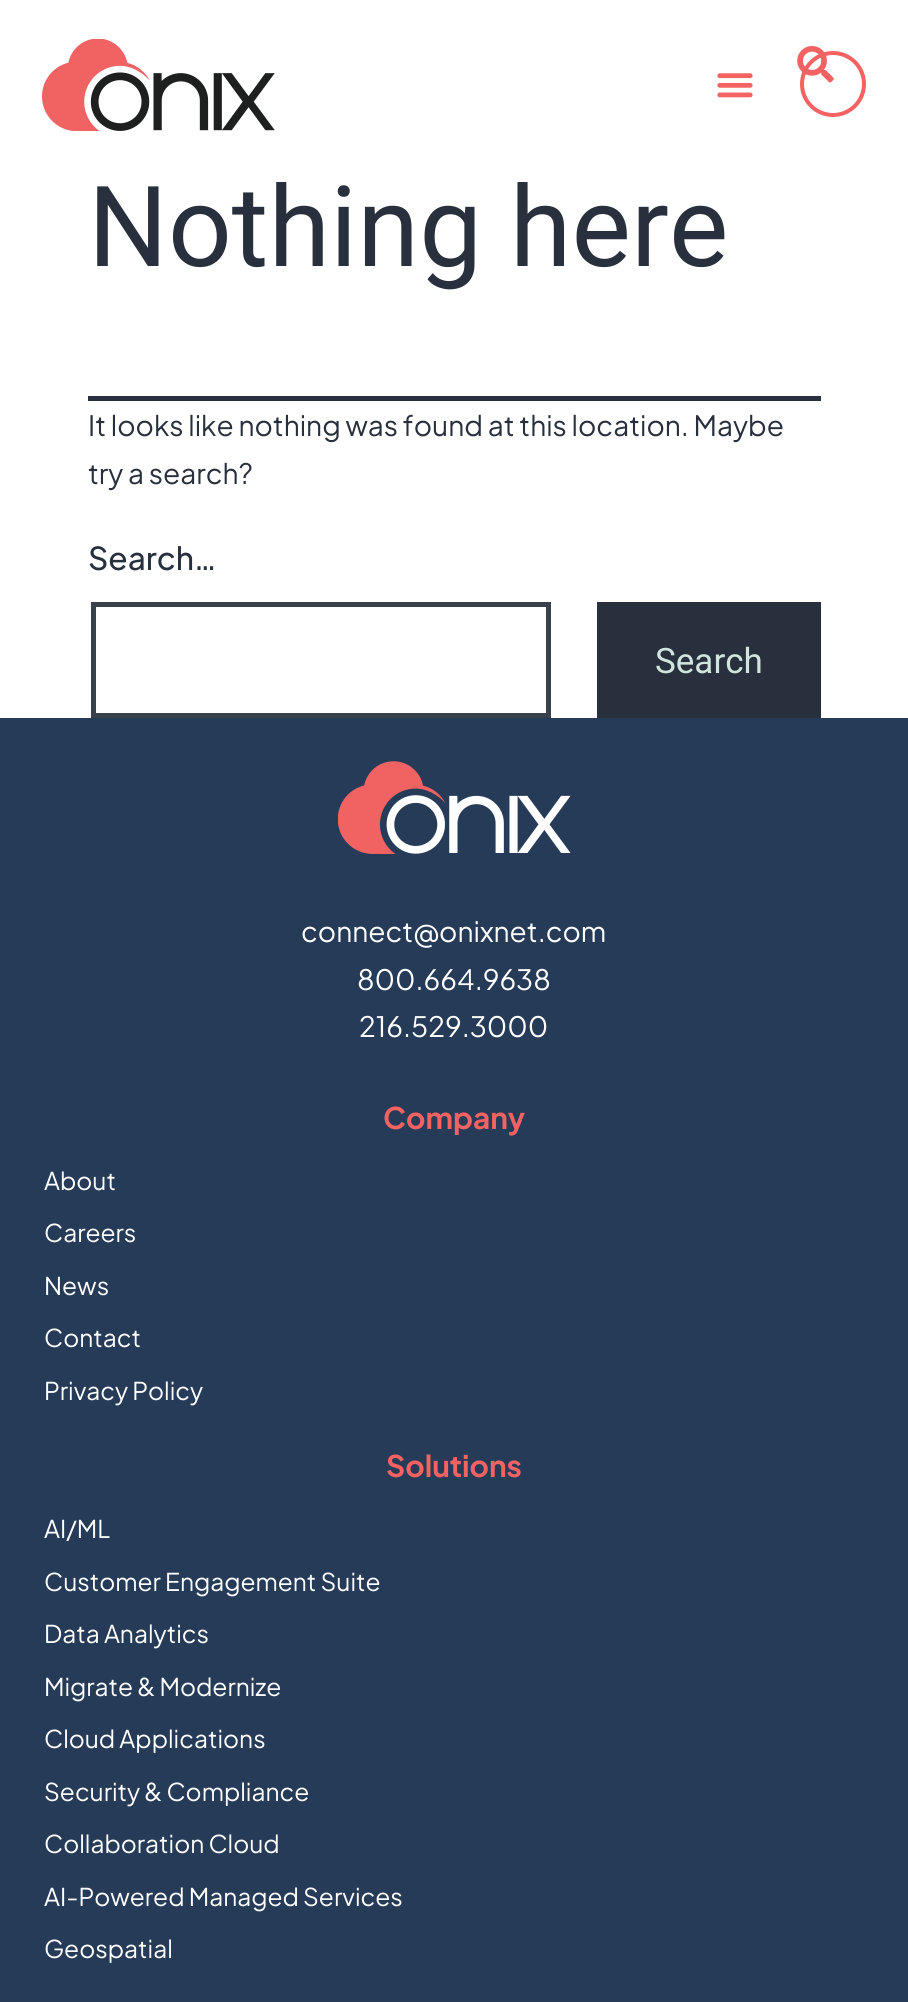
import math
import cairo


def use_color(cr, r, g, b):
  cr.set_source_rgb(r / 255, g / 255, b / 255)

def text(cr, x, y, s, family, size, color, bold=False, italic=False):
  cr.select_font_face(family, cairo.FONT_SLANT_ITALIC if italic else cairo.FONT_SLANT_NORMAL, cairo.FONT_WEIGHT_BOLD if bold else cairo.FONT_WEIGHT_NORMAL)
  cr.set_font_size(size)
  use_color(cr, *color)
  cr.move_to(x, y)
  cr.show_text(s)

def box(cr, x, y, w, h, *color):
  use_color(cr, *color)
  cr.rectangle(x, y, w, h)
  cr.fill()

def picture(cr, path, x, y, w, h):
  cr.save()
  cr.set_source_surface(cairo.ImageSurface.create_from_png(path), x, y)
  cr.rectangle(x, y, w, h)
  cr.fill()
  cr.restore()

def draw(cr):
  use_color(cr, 255, 255, 255)
  cr.paint()
  picture(cr, "img_01.png", 42, 39, 233, 92)
  picture(cr, "img_02.png", 717, 73, 36, 25)
  cr.arc(833, 84, 31, 0, 2 * math.pi)
  use_color(cr, 244, 98, 98)
  cr.set_line_width(4)
  cr.stroke()
  picture(cr, "img_03.png", 797, 46, 37, 37)
  box(cr, 88, 396, 733, 5, 40, 48, 61)
  cr.rectangle(93.5, 604.5, 455, 111)
  use_color(cr, 57, 65, 77)
  cr.set_line_width(5)
  cr.stroke()
  box(cr, 597, 602, 224, 116, 40, 48, 61)
  box(cr, 0, 718, 908, 1284, 38, 59, 88)
  picture(cr, "img_04.png", 338, 761, 233, 93)
  text(cr, 88, 266, "Nothing here", "Roboto", 112, (40, 48, 61))
  text(cr, 88, 436, "It looks like nothing was found at this location. Maybe", "Plus Jakarta Sans", 28, (40, 48, 61))
  text(cr, 88, 484, "try a search?", "Plus Jakarta Sans", 28, (40, 48, 61))
  text(cr, 88, 570, "Search…", "Plus Jakarta Sans Medium", 31.5, (40, 48, 61))
  text(cr, 655, 673, "Search", "Roboto", 35, (209, 228, 221))
  text(cr, 301, 942, "connect@onixnet.com", "Plus Jakarta Sans", 28, (255, 255, 255))
  text(cr, 357, 990, "800.664.9638", "Plus Jakarta Sans", 28, (255, 255, 255))
  text(cr, 359, 1037, "216.529.3000", "Plus Jakarta Sans", 28, (255, 255, 255))
  text(cr, 383, 1129, "Company", "Plus Jakarta Sans", 29.75, (244, 98, 98), bold=True)
  text(cr, 44, 1190, "About", "Plus Jakarta Sans", 24.5, (255, 255, 255))
  text(cr, 44, 1242, "Careers", "Plus Jakarta Sans", 24.5, (255, 255, 255))
  text(cr, 44, 1295, "News", "Plus Jakarta Sans", 24.5, (255, 255, 255))
  text(cr, 44, 1347, "Contact", "Plus Jakarta Sans", 24.5, (255, 255, 255))
  text(cr, 44, 1400, "Privacy Policy", "Plus Jakarta Sans", 24.5, (255, 255, 255))
  text(cr, 386, 1477, "Solutions", "Plus Jakarta Sans", 29.75, (244, 98, 98), bold=True)
  text(cr, 44, 1538, "AI/ML", "Plus Jakarta Sans", 24.5, (255, 255, 255))
  text(cr, 44, 1591, "Customer Engagement Suite", "Plus Jakarta Sans", 24.5, (255, 255, 255))
  text(cr, 44, 1643, "Data Analytics", "Plus Jakarta Sans", 24.5, (255, 255, 255))
  text(cr, 44, 1696, "Migrate & Modernize", "Plus Jakarta Sans", 24.5, (255, 255, 255))
  text(cr, 44, 1748, "Cloud Applications", "Plus Jakarta Sans", 24.5, (255, 255, 255))
  text(cr, 44, 1801, "Security & Compliance", "Plus Jakarta Sans", 24.5, (255, 255, 255))
  text(cr, 44, 1853, "Collaboration Cloud", "Plus Jakarta Sans", 24.5, (255, 255, 255))
  text(cr, 44, 1906, "AI-Powered Managed Services", "Plus Jakarta Sans", 24.5, (255, 255, 255))
  text(cr, 44, 1958, "Geospatial", "Plus Jakarta Sans", 24.5, (255, 255, 255))


surface = cairo.ImageSurface(cairo.FORMAT_RGB24, 908, 2002)
cr = cairo.Context(surface)
options = cairo.FontOptions()
options.set_hint_metrics(cairo.HINT_METRICS_OFF)
options.set_hint_style(cairo.HINT_STYLE_NONE)
cr.set_font_options(options)
cr.set_miter_limit(4)
draw(cr)
surface.write_to_png("out.png")
